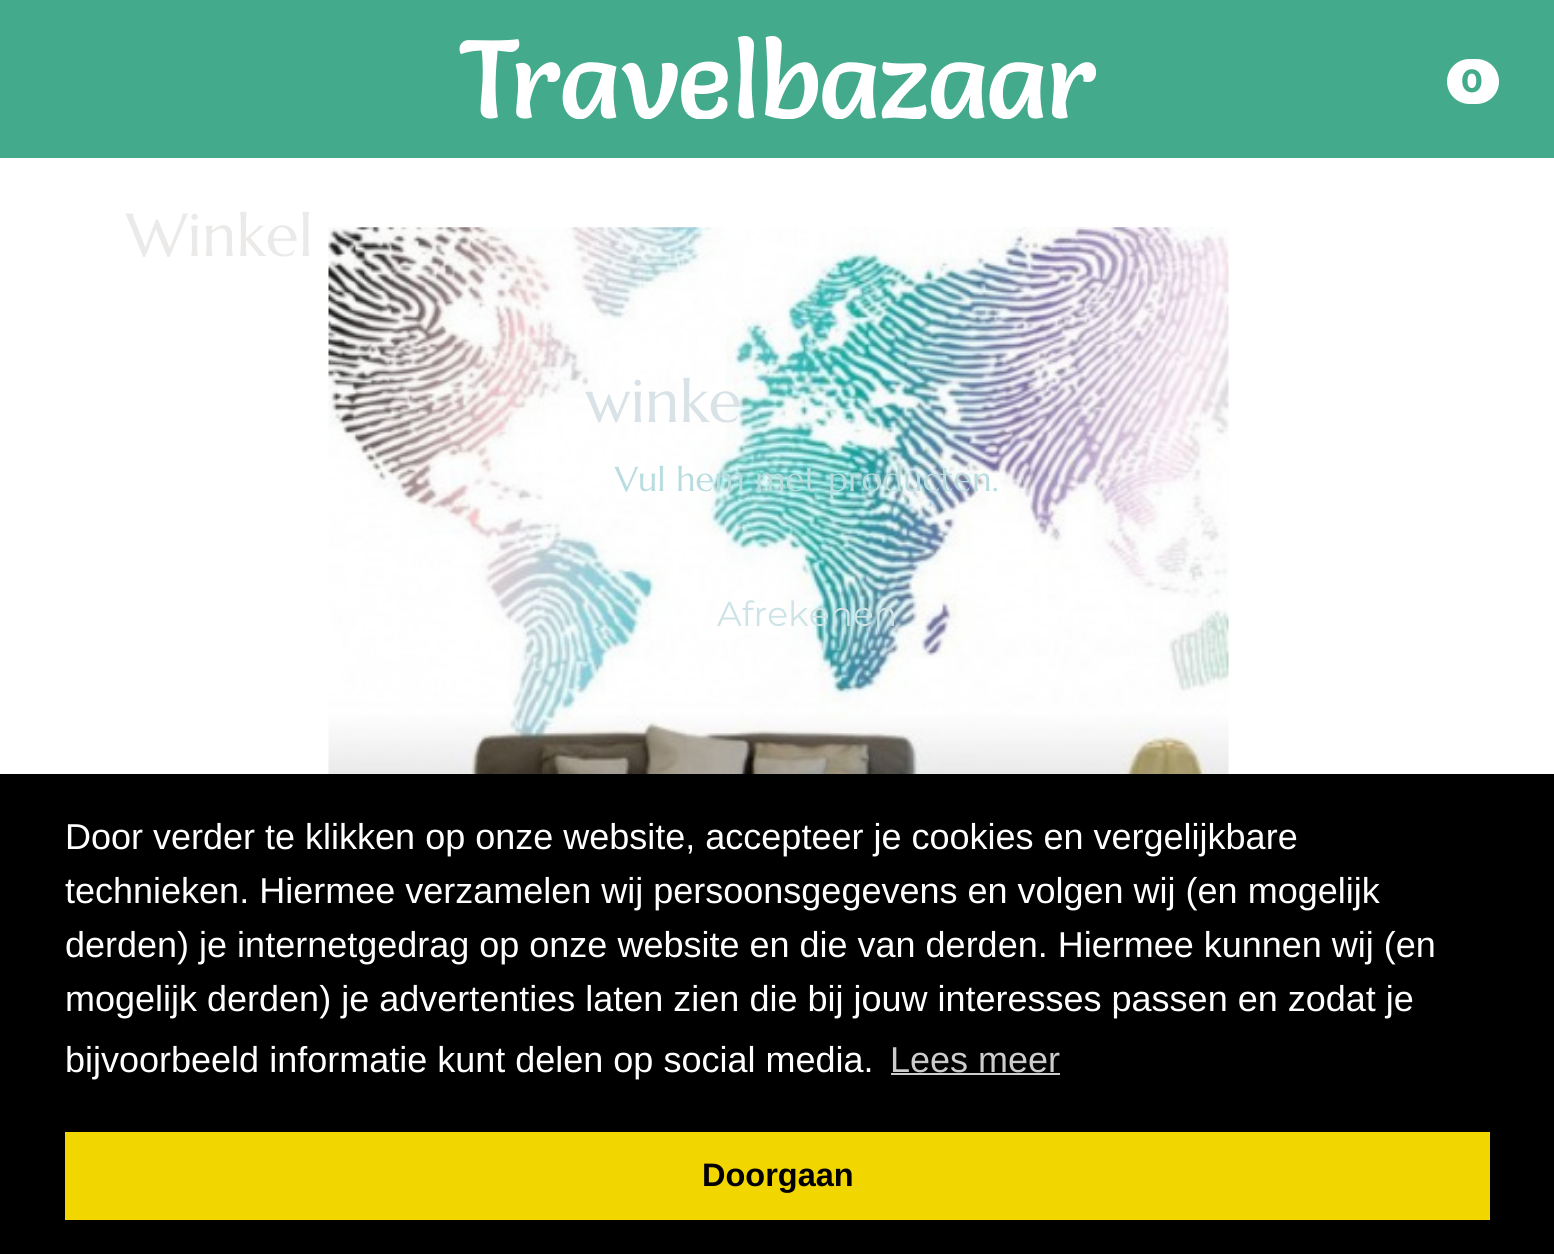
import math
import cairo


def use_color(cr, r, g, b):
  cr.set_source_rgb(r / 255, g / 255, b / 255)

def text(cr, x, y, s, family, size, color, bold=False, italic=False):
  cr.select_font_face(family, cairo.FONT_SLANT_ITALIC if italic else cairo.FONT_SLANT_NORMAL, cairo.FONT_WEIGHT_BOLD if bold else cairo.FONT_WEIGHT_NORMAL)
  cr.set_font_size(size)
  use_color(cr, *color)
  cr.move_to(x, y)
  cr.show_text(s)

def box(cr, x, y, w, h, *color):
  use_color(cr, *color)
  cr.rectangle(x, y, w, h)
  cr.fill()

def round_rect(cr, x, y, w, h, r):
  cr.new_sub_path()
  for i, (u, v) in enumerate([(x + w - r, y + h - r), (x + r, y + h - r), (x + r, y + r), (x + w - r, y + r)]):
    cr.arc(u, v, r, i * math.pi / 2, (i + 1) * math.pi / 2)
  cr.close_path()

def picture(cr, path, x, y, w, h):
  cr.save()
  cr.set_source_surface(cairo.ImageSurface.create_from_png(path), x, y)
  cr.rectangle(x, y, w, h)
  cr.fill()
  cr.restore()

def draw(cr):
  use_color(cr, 255, 255, 255)
  cr.paint()
  box(cr, 0, 0, 1554, 158, 67, 170, 139)
  picture(cr, "img_01.png", 459, 36, 637, 83)
  use_color(cr, 255, 255, 255)
  round_rect(cr, 1447, 59, 52, 45, 22.5)
  cr.fill()
  picture(cr, "img_02.png", 328, 227, 901, 547)
  box(cr, 0, 774, 1554, 480, 0, 0, 0)
  box(cr, 891, 1073, 169, 2, 204, 204, 204)
  box(cr, 65, 1132, 1425, 88, 241, 214, 0)
  text(cr, 1461, 92, "0", "Montserrat", 32, (67, 170, 139), bold=True)
  text(cr, 126, 256, "Winkel", "Marcellus", 60.5, (235, 234, 233))
  text(cr, 585, 422, "winke", "Marcellus", 60.5, (216, 226, 231))
  text(cr, 615, 491, "Vul hem met producten.", "Marcellus", 34.5, (185, 221, 223))
  text(cr, 717, 626, "Afrekenen", "Montserrat", 34.5, (205, 227, 230))
  text(cr, 65, 849, "Door verder te klikken op onze website, accepteer je cookies en vergelijkbare", "Liberation Sans", 36, (255, 255, 255))
  text(cr, 65, 903, "technieken. Hiermee verzamelen wij persoonsgegevens en volgen wij (en mogelijk", "Liberation Sans", 36, (255, 255, 255))
  text(cr, 65, 957, "derden) je internetgedrag op onze website en die van derden. Hiermee kunnen wij (en", "Liberation Sans", 36, (255, 255, 255))
  text(cr, 65, 1011, "mogelijk derden) je advertenties laten zien die bij jouw interesses passen en zodat je", "Liberation Sans", 36, (255, 255, 255))
  text(cr, 65, 1072, "bijvoorbeeld informatie kunt delen op social media.", "Liberation Sans", 36, (255, 255, 255))
  text(cr, 890, 1072, "Lees meer", "Liberation Sans", 36, (204, 204, 204))
  text(cr, 702, 1186, "Doorgaan", "Liberation Sans", 32.5, (0, 0, 0), bold=True)


surface = cairo.ImageSurface(cairo.FORMAT_RGB24, 1554, 1254)
cr = cairo.Context(surface)
options = cairo.FontOptions()
options.set_hint_metrics(cairo.HINT_METRICS_OFF)
options.set_hint_style(cairo.HINT_STYLE_NONE)
cr.set_font_options(options)
cr.set_miter_limit(4)
draw(cr)
surface.write_to_png("out.png")
